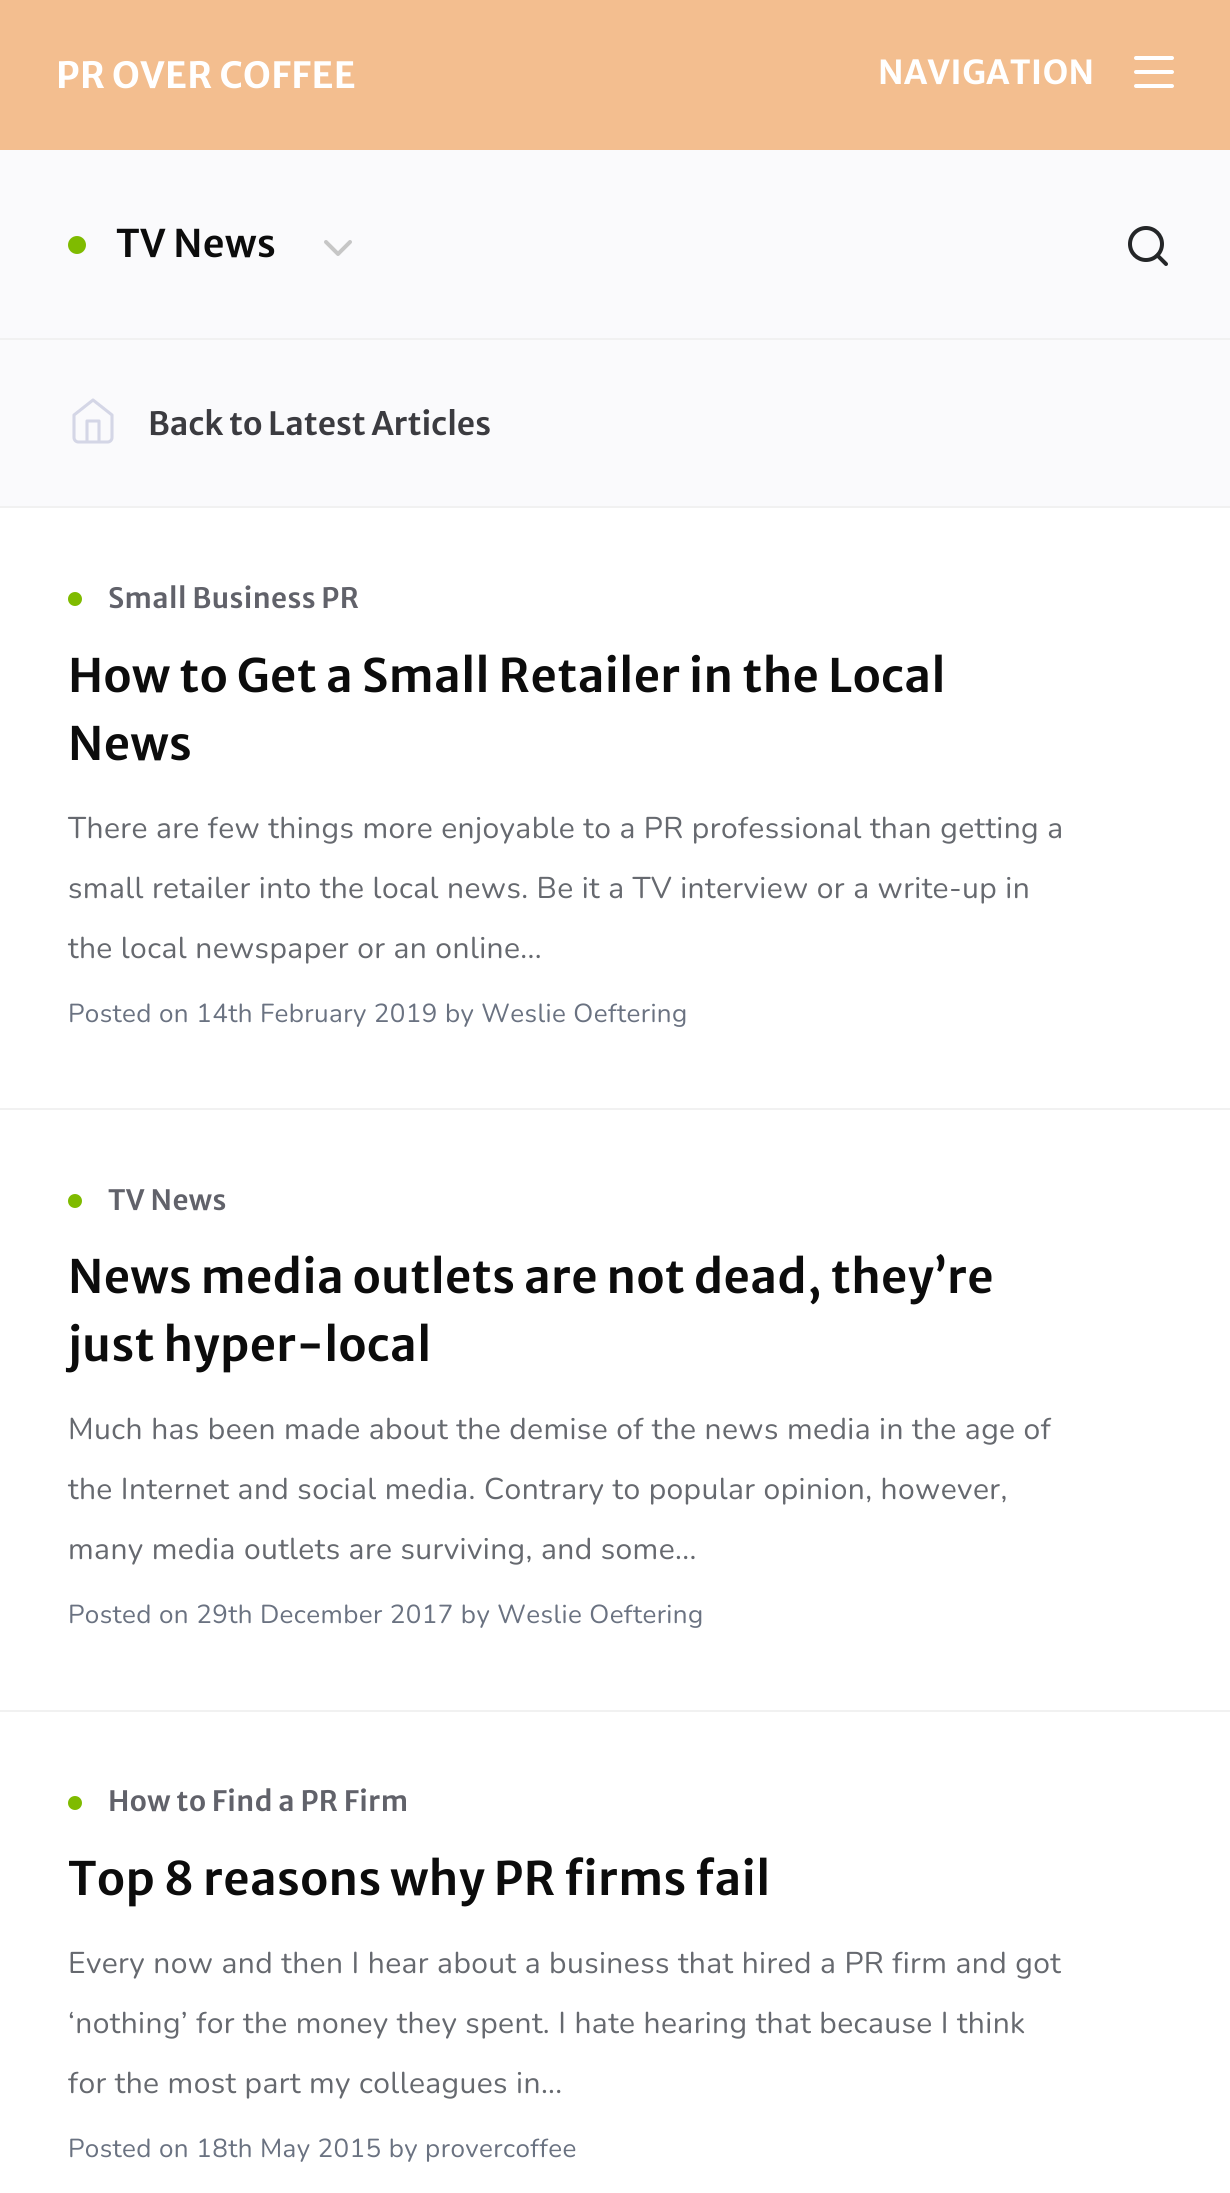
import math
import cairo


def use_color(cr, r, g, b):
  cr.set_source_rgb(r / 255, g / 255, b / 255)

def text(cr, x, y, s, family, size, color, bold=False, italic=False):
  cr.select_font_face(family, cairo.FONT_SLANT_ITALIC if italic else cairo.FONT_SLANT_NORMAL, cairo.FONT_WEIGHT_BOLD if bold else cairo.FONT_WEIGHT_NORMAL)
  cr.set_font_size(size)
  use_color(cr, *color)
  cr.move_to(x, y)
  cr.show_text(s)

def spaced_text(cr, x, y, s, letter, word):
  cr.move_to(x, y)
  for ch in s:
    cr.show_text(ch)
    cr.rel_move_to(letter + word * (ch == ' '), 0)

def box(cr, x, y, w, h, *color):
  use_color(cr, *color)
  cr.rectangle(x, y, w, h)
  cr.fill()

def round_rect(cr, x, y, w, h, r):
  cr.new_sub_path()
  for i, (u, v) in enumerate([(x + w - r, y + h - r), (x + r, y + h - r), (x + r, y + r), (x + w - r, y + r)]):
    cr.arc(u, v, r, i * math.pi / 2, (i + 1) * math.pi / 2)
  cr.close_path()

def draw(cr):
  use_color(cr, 255, 255, 255)
  cr.paint()
  box(cr, 0, 0, 1230, 150, 243, 190, 143)
  use_color(cr, 255, 255, 255)
  round_rect(cr, 1134, 56, 40, 4, 2)
  cr.fill()
  round_rect(cr, 1134, 70, 40, 4, 2)
  cr.fill()
  round_rect(cr, 1134, 84, 40, 4, 2)
  cr.fill()
  box(cr, 0, 150, 1230, 188, 250, 250, 252)
  use_color(cr, 127, 187, 0)
  cr.arc(77, 245, 9, 0, 2 * math.pi)
  cr.fill()
  cr.new_path()
  cr.move_to(326, 242)
  cr.line_to(338, 254)
  cr.line_to(350, 242)
  use_color(cr, 198, 198, 198)
  cr.set_line_width(4)
  cr.set_line_cap(cairo.LINE_CAP_ROUND)
  cr.set_line_join(cairo.LINE_JOIN_ROUND)
  cr.stroke()
  cr.arc(1146, 244, 16, 0, 2 * math.pi)
  use_color(cr, 36, 38, 40)
  cr.set_line_cap(cairo.LINE_CAP_BUTT)
  cr.set_line_join(cairo.LINE_JOIN_MITER)
  cr.stroke()
  cr.new_path()
  cr.move_to(1166, 264)
  cr.line_to(1157.5, 255.5)
  cr.set_line_cap(cairo.LINE_CAP_ROUND)
  cr.set_line_join(cairo.LINE_JOIN_ROUND)
  cr.stroke()
  box(cr, 0, 340, 1230, 166, 250, 250, 252)
  box(cr, 0, 338, 1230, 2, 241, 241, 241)
  box(cr, 0, 506, 1230, 2, 241, 241, 241)
  cr.new_path()
  cr.move_to(74, 415)
  cr.line_to(93, 400)
  cr.line_to(112, 415)
  cr.line_to(112, 437.5)
  cr.curve_to(112, 440, 110, 442, 107.5, 442)
  cr.line_to(78.5, 442)
  cr.curve_to(76, 442, 74, 440, 74, 437.5)
  cr.close_path()
  cr.move_to(87, 442)
  cr.line_to(87, 421)
  cr.line_to(99, 421)
  cr.line_to(99, 442)
  use_color(cr, 212, 214, 230)
  cr.set_line_width(3.1)
  cr.stroke()
  box(cr, 0, 1108, 1230, 2, 241, 241, 241)
  use_color(cr, 127, 187, 0)
  cr.arc(75, 599, 7, 0, 2 * math.pi)
  cr.fill()
  box(cr, 0, 1710, 1230, 2, 241, 241, 241)
  use_color(cr, 127, 187, 0)
  cr.arc(75, 1201, 7, 0, 2 * math.pi)
  cr.fill()
  cr.arc(75, 1803, 7, 0, 2 * math.pi)
  cr.fill()
  cr.select_font_face("Merriweather Sans", cairo.FONT_SLANT_NORMAL, cairo.FONT_WEIGHT_BOLD)
  cr.set_font_size(36)
  use_color(cr, 255, 255, 255)
  spaced_text(cr, 56, 88, "PR OVER COFFEE", 0.4, 0)
  cr.set_font_size(33)
  spaced_text(cr, 878, 84, "NAVIGATION", 0.4, 0)
  cr.select_font_face("Merriweather Sans SemiBold")
  cr.set_font_size(38)
  use_color(cr, 12, 12, 12)
  spaced_text(cr, 116, 257, "TV News", 0.4, 0)
  text(cr, 148, 435, "Back to Latest Articles", "Merriweather Sans SemiBold", 32, (59, 59, 64))
  cr.set_font_size(28)
  use_color(cr, 97, 98, 106)
  spaced_text(cr, 108, 608, "Small Business PR", 0.4, 0)
  cr.set_font_size(46)
  use_color(cr, 12, 12, 12)
  spaced_text(cr, 68, 692, "How to Get a Small Retailer in the Local", 0.4, 0)
  spaced_text(cr, 68, 760, "News", 0.4, 0)
  cr.select_font_face("Nunito")
  cr.set_font_size(30)
  use_color(cr, 102, 105, 111)
  spaced_text(cr, 68, 838, "There are few things more enjoyable to a PR professional than getting a", 0.4, 0)
  spaced_text(cr, 68, 898, "small retailer into the local news. Be it a TV interview or a write-up in", 0.4, 0)
  spaced_text(cr, 68, 958, "the local newspaper or an online...", 0.4, 0)
  cr.set_font_size(26)
  use_color(cr, 106, 114, 129)
  spaced_text(cr, 68, 1022, "Posted on 14th February 2019 by Weslie Oeftering", 0.4, 0)
  cr.select_font_face("Merriweather Sans SemiBold")
  cr.set_font_size(28)
  use_color(cr, 97, 98, 106)
  spaced_text(cr, 108, 1210, "TV News", 0.4, 0)
  cr.set_font_size(46)
  use_color(cr, 12, 12, 12)
  spaced_text(cr, 68, 1293, "News media outlets are not dead, they’re", 0.4, 0)
  spaced_text(cr, 68, 1361, "just hyper-local", 0.4, 0)
  cr.select_font_face("Nunito")
  cr.set_font_size(30)
  use_color(cr, 102, 105, 111)
  spaced_text(cr, 68, 1439, "Much has been made about the demise of the news media in the age of", 0.4, 0)
  spaced_text(cr, 68, 1499, "the Internet and social media. Contrary to popular opinion, however,", 0.4, 0)
  spaced_text(cr, 68, 1559, "many media outlets are surviving, and some...", 0.4, 0)
  cr.set_font_size(26)
  use_color(cr, 106, 114, 129)
  spaced_text(cr, 68, 1623, "Posted on 29th December 2017 by Weslie Oeftering", 0.4, 0)
  cr.select_font_face("Merriweather Sans SemiBold")
  cr.set_font_size(28)
  use_color(cr, 97, 98, 106)
  spaced_text(cr, 108, 1811, "How to Find a PR Firm", 0.4, 0)
  cr.set_font_size(46)
  use_color(cr, 12, 12, 12)
  spaced_text(cr, 68, 1895, "Top 8 reasons why PR firms fail", 0.4, 0)
  cr.select_font_face("Nunito")
  cr.set_font_size(30)
  use_color(cr, 102, 105, 111)
  spaced_text(cr, 68, 1973, "Every now and then I hear about a business that hired a PR firm and got", 0.4, 0)
  spaced_text(cr, 68, 2033, "‘nothing’ for the money they spent. I hate hearing that because I think", 0.4, 0)
  spaced_text(cr, 68, 2093, "for the most part my colleagues in...", 0.4, 0)
  cr.set_font_size(26)
  use_color(cr, 106, 114, 129)
  spaced_text(cr, 68, 2157, "Posted on 18th May 2015 by provercoffee", 0.4, 0)


surface = cairo.ImageSurface(cairo.FORMAT_RGB24, 1230, 2193)
cr = cairo.Context(surface)
options = cairo.FontOptions()
options.set_hint_metrics(cairo.HINT_METRICS_OFF)
options.set_hint_style(cairo.HINT_STYLE_NONE)
cr.set_font_options(options)
cr.set_miter_limit(4)
draw(cr)
surface.write_to_png("out.png")
